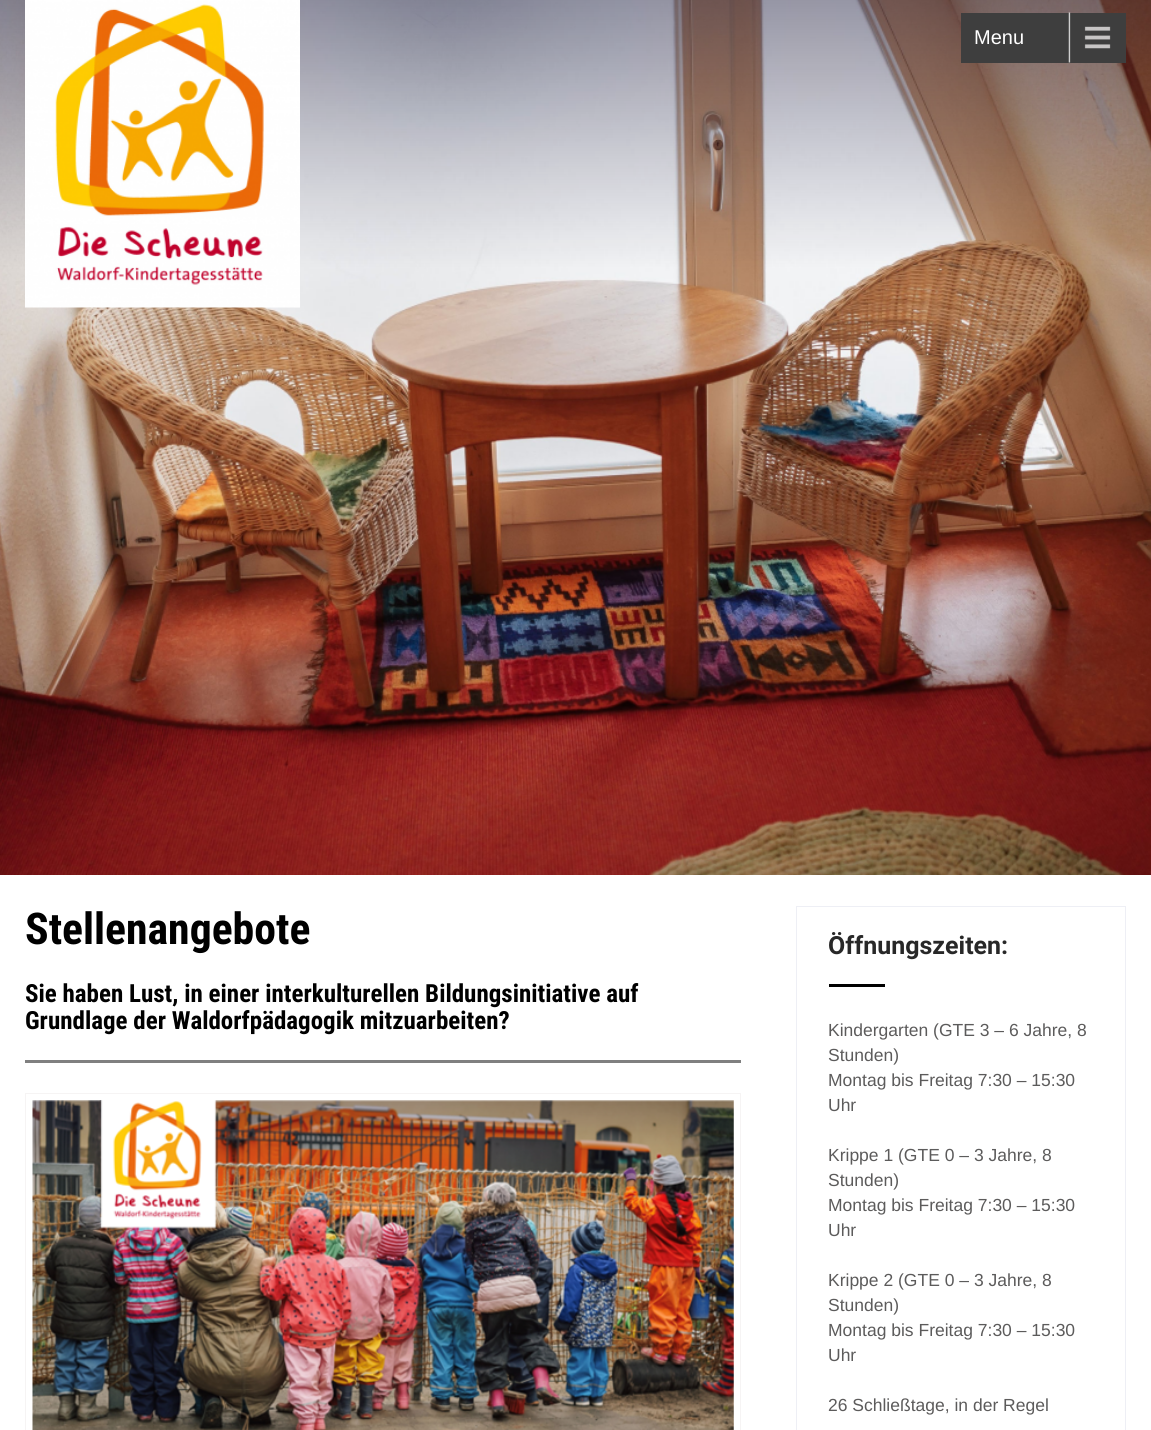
import math
import cairo


def use_color(cr, r, g, b):
  cr.set_source_rgb(r / 255, g / 255, b / 255)

def text(cr, x, y, s, family, size, color, bold=False, italic=False):
  cr.select_font_face(family, cairo.FONT_SLANT_ITALIC if italic else cairo.FONT_SLANT_NORMAL, cairo.FONT_WEIGHT_BOLD if bold else cairo.FONT_WEIGHT_NORMAL)
  cr.set_font_size(size)
  use_color(cr, *color)
  cr.move_to(x, y)
  cr.show_text(s)

def box(cr, x, y, w, h, *color):
  use_color(cr, *color)
  cr.rectangle(x, y, w, h)
  cr.fill()

def picture(cr, path, x, y, w, h):
  cr.save()
  cr.set_source_surface(cairo.ImageSurface.create_from_png(path), x, y)
  cr.rectangle(x, y, w, h)
  cr.fill()
  cr.restore()

def draw(cr):
  use_color(cr, 255, 255, 255)
  cr.paint()
  picture(cr, "img_01.png", 0, 0, 1151, 875)
  picture(cr, "img_02.png", 25, 0, 275, 308)
  box(cr, 961, 13, 165, 50, 62, 62, 62)
  picture(cr, "img_03.png", 1068, 12, 43, 51)
  box(cr, 25, 1060, 716, 3, 128, 128, 128)
  cr.rectangle(25.5, 1093.5, 715, 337)
  use_color(cr, 246, 244, 244)
  cr.set_line_width(1)
  cr.stroke()
  picture(cr, "img_04.png", 32, 1100, 702, 330)
  box(cr, 796, 906, 330, 1, 238, 239, 245)
  box(cr, 1125, 906, 1, 524, 238, 239, 245)
  box(cr, 796, 906, 1, 524, 238, 239, 245)
  box(cr, 829, 984, 56, 3, 0, 0, 0)
  text(cr, 974, 44, "Menu", "Liberation Sans", 20, (255, 255, 255))
  text(cr, 25, 944, "Stellenangebote", "Roboto Condensed", 43.75, (0, 0, 0), bold=True)
  text(cr, 25, 1002, "Sie haben Lust, in einer interkulturellen Bildungsinitiative auf", "Roboto Condensed", 25, (0, 0, 0), bold=True)
  text(cr, 25, 1029, "Grundlage der Waldorfpädagogik mitzuarbeiten?", "Roboto Condensed", 25, (0, 0, 0), bold=True)
  text(cr, 828, 954, "Öffnungszeiten:", "Roboto", 25, (40, 40, 40), bold=True)
  text(cr, 828, 1036, "Kindergarten (GTE 3 – 6 Jahre, 8", "Liberation Sans", 17.5, (92, 91, 91))
  text(cr, 828, 1061, "Stunden)", "Liberation Sans", 17.5, (92, 91, 91))
  text(cr, 828, 1086, "Montag bis Freitag 7:30 – 15:30", "Liberation Sans", 17.5, (92, 91, 91))
  text(cr, 828, 1111, "Uhr", "Liberation Sans", 17.5, (92, 91, 91))
  text(cr, 828, 1161, "Krippe 1 (GTE 0 – 3 Jahre, 8", "Liberation Sans", 17.5, (92, 91, 91))
  text(cr, 828, 1186, "Stunden)", "Liberation Sans", 17.5, (92, 91, 91))
  text(cr, 828, 1211, "Montag bis Freitag 7:30 – 15:30", "Liberation Sans", 17.5, (92, 91, 91))
  text(cr, 828, 1236, "Uhr", "Liberation Sans", 17.5, (92, 91, 91))
  text(cr, 828, 1286, "Krippe 2 (GTE 0 – 3 Jahre, 8", "Liberation Sans", 17.5, (92, 91, 91))
  text(cr, 828, 1311, "Stunden)", "Liberation Sans", 17.5, (92, 91, 91))
  text(cr, 828, 1336, "Montag bis Freitag 7:30 – 15:30", "Liberation Sans", 17.5, (92, 91, 91))
  text(cr, 828, 1361, "Uhr", "Liberation Sans", 17.5, (92, 91, 91))
  text(cr, 828, 1411, "26 Schließtage, in der Regel", "Liberation Sans", 17.5, (92, 91, 91))


surface = cairo.ImageSurface(cairo.FORMAT_RGB24, 1151, 1430)
cr = cairo.Context(surface)
options = cairo.FontOptions()
options.set_hint_metrics(cairo.HINT_METRICS_OFF)
options.set_hint_style(cairo.HINT_STYLE_NONE)
cr.set_font_options(options)
cr.set_miter_limit(4)
draw(cr)
surface.write_to_png("out.png")
